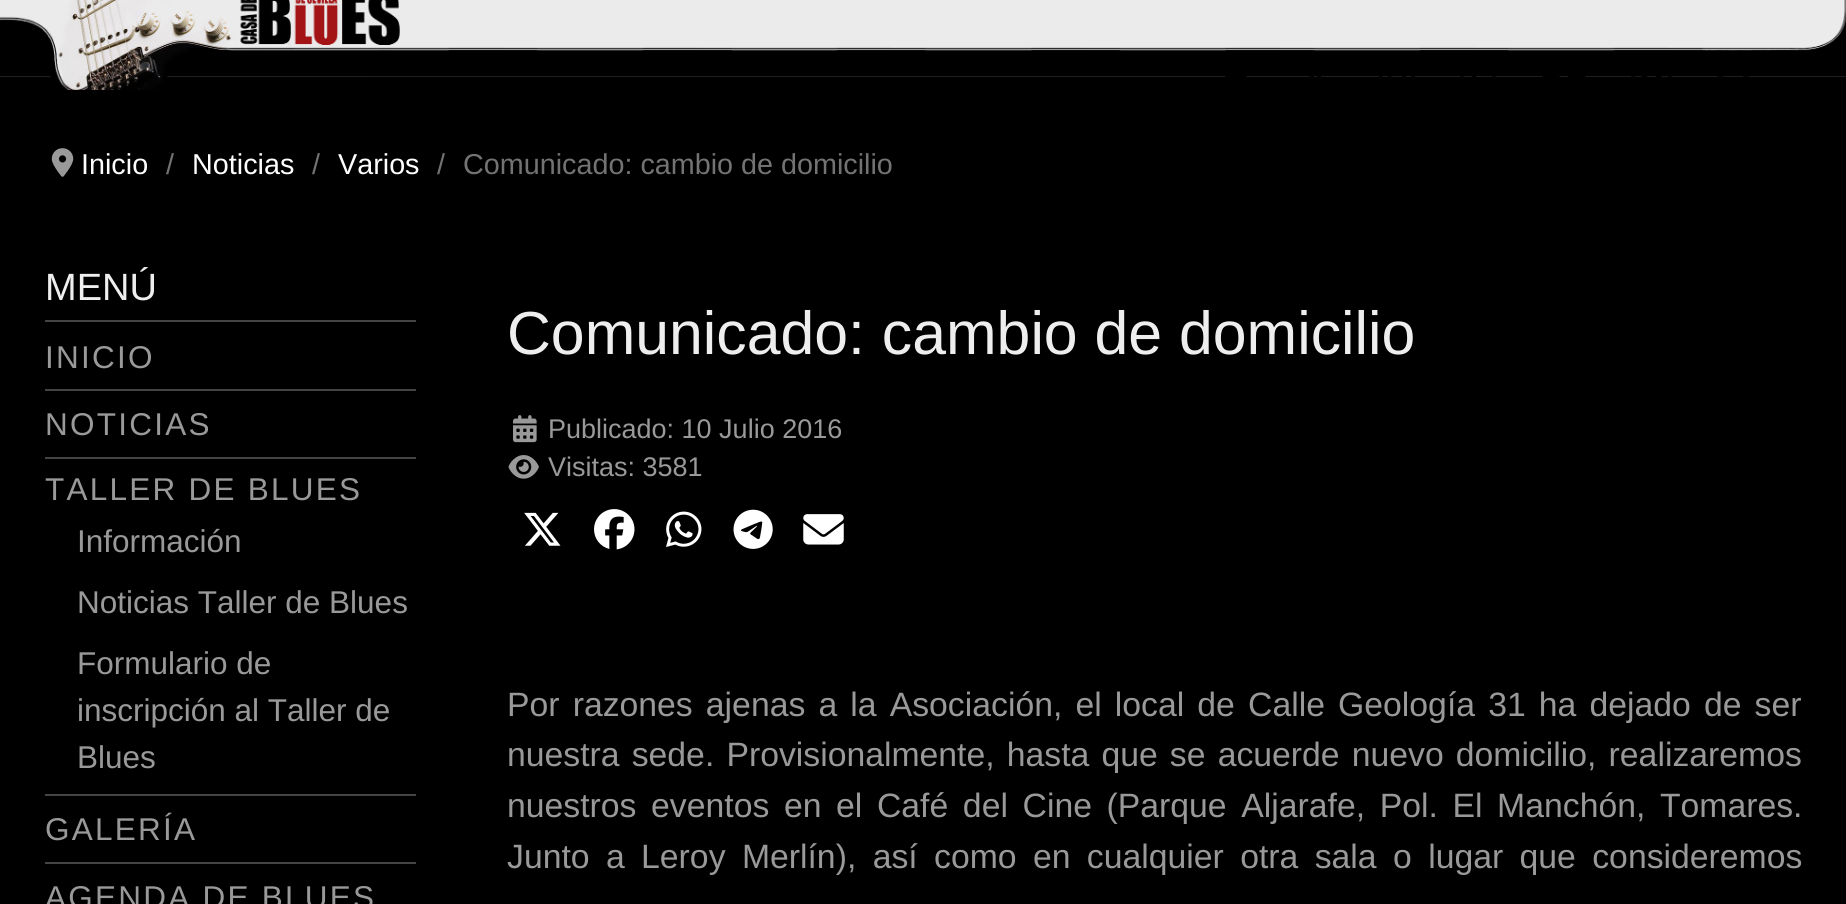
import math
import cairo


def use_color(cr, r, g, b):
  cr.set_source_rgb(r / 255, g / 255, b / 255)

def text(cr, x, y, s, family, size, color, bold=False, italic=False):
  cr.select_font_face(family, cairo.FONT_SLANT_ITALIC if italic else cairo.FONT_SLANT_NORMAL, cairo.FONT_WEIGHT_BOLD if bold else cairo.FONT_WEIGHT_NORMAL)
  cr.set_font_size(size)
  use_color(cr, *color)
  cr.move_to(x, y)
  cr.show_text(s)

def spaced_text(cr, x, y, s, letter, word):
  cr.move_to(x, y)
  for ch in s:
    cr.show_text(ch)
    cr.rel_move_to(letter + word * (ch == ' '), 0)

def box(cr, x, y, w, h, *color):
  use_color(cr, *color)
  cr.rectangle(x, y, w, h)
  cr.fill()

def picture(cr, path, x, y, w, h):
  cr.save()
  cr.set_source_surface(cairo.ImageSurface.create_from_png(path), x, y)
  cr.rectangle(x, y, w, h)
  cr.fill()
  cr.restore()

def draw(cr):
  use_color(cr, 0, 0, 0)
  cr.paint()
  picture(cr, "img_01.png", 0, 0, 1846, 90)
  picture(cr, "img_02.png", 1225, 76, 22, 1)
  picture(cr, "img_03.png", 1309, 76, 13, 1)
  picture(cr, "img_04.png", 1379, 76, 36, 1)
  picture(cr, "img_05.png", 1460, 76, 36, 1)
  picture(cr, "img_06.png", 1542, 76, 44, 1)
  picture(cr, "img_07.png", 1631, 76, 41, 1)
  picture(cr, "img_08.png", 1717, 76, 32, 1)
  picture(cr, "img_09.png", 51, 148, 23, 29)
  box(cr, 45, 320, 371, 2, 68, 68, 68)
  box(cr, 45, 389, 371, 2, 68, 68, 68)
  box(cr, 45, 457, 371, 2, 68, 68, 68)
  box(cr, 45, 794, 371, 2, 68, 68, 68)
  box(cr, 45, 862, 371, 2, 68, 68, 68)
  picture(cr, "img_10.png", 513, 415, 24, 28)
  picture(cr, "img_11.png", 508, 455, 31, 24)
  picture(cr, "img_12.png", 524, 512, 37, 34)
  picture(cr, "img_13.png", 594, 509, 41, 41)
  picture(cr, "img_14.png", 666, 511, 36, 36)
  picture(cr, "img_15.png", 733, 509, 40, 40)
  picture(cr, "img_16.png", 803, 514, 41, 31)
  text(cr, 81, 174, "Inicio", "Liberation Sans", 28.75, (255, 255, 255))
  text(cr, 166, 174, "/", "Liberation Sans", 28.75, (115, 115, 115))
  text(cr, 192, 174, "Noticias", "Liberation Sans", 28.75, (255, 255, 255))
  text(cr, 312, 174, "/", "Liberation Sans", 28.75, (115, 115, 115))
  text(cr, 338, 174, "Varios", "Liberation Sans", 28.75, (255, 255, 255))
  text(cr, 437, 174, "/", "Liberation Sans", 28.75, (115, 115, 115))
  text(cr, 463, 174, "Comunicado: cambio de domicilio", "Liberation Sans", 28.75, (115, 115, 115))
  text(cr, 45, 300, "MENÚ", "Liberation Sans", 38, (238, 238, 238))
  cr.set_font_size(31.5)
  use_color(cr, 153, 153, 153)
  spaced_text(cr, 45, 368, "INICIO", 2.25, 0)
  spaced_text(cr, 45, 435, "NOTICIAS", 2.25, 0)
  spaced_text(cr, 45, 500, "TALLER DE BLUES", 2.25, 0)
  text(cr, 77, 552, "Información", "Liberation Sans", 31.5, (153, 153, 153))
  text(cr, 77, 613, "Noticias Taller de Blues", "Liberation Sans", 31.5, (153, 153, 153))
  text(cr, 77, 674, "Formulario de", "Liberation Sans", 31.5, (153, 153, 153))
  text(cr, 77, 721, "inscripción al Taller de", "Liberation Sans", 31.5, (153, 153, 153))
  text(cr, 77, 768, "Blues", "Liberation Sans", 31.5, (153, 153, 153))
  spaced_text(cr, 45, 840, "GALERÍA", 2.25, 0)
  spaced_text(cr, 45, 908, "AGENDA DE BLUES", 2.25, 0)
  text(cr, 507, 354, "Comunicado: cambio de domicilio", "Liberation Sans", 60.75, (238, 238, 238))
  text(cr, 548, 438, "Publicado: 10 Julio 2016", "Liberation Sans", 27, (153, 153, 153))
  text(cr, 548, 476, "Visitas: 3581", "Liberation Sans", 27, (153, 153, 153))
  cr.set_font_size(33.75)
  spaced_text(cr, 507, 716, "Por razones ajenas a la Asociación, el local de Calle Geología 31 ha dejado de ser", 0, 3.75)
  spaced_text(cr, 507, 766, "nuestra sede. Provisionalmente, hasta que se acuerde nuevo domicilio, realizaremos", 0, 2.75)
  spaced_text(cr, 507, 817, "nuestros eventos en el Café del Cine (Parque Aljarafe, Pol. El Manchón, Tomares.", 0, 5.25)
  spaced_text(cr, 507, 868, "Junto a Leroy Merlín), así como en cualquier otra sala o lugar que consideremos", 0, 7)


surface = cairo.ImageSurface(cairo.FORMAT_RGB24, 1846, 904)
cr = cairo.Context(surface)
options = cairo.FontOptions()
options.set_hint_metrics(cairo.HINT_METRICS_OFF)
options.set_hint_style(cairo.HINT_STYLE_NONE)
cr.set_font_options(options)
cr.set_miter_limit(4)
draw(cr)
surface.write_to_png("out.png")
